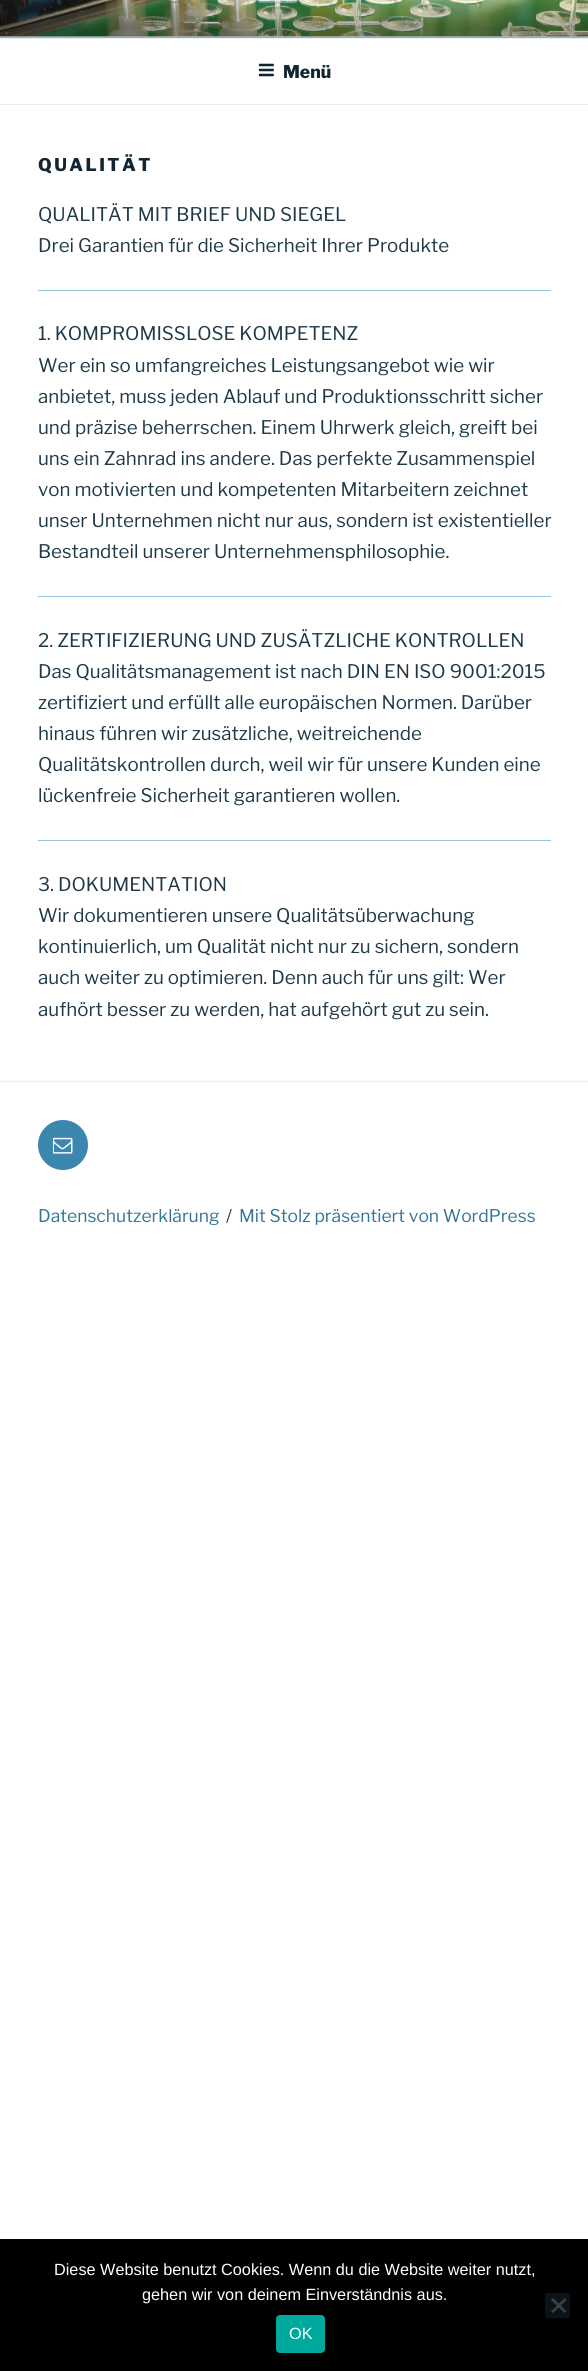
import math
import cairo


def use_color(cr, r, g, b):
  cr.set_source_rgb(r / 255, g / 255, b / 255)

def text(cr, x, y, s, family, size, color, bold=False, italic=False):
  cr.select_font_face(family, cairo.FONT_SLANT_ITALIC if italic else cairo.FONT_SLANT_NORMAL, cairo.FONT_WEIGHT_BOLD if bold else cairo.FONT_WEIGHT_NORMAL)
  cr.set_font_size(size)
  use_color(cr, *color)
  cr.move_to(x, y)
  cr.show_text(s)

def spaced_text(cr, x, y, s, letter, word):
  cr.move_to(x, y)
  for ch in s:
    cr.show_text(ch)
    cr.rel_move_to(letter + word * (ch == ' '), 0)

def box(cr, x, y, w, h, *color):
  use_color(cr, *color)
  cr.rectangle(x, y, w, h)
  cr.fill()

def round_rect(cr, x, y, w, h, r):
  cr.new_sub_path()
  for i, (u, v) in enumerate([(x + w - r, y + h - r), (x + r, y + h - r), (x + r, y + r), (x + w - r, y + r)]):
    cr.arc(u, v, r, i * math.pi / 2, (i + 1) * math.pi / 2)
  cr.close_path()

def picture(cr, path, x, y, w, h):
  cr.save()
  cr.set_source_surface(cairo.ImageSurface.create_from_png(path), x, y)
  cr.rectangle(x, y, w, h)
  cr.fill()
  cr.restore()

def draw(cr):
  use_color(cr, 255, 255, 255)
  cr.paint()
  box(cr, 0, 36, 588, 2, 247, 251, 252)
  picture(cr, "img_01.png", 0, 0, 588, 37)
  gradient = cairo.LinearGradient(294, 0, 294, 38)
  gradient.add_color_stop_rgba(0, 0, 0, 0, 0)
  gradient.add_color_stop_rgba(0.75, 0, 0, 0, 0.3)
  gradient.add_color_stop_rgba(1, 0, 0, 0, 0.3)
  cr.set_source(gradient)
  cr.rectangle(0, 2, 588, 36)
  cr.fill()
  box(cr, 0, 38, 588, 1, 228, 240, 246)
  box(cr, 0, 104, 588, 1, 228, 240, 246)
  picture(cr, "img_02.png", 258, 63, 16, 14)
  box(cr, 38, 290, 513, 1, 152, 196, 221)
  box(cr, 38, 596, 513, 1, 152, 196, 221)
  box(cr, 38, 840, 513, 1, 152, 196, 221)
  box(cr, 0, 1081, 588, 1, 228, 240, 246)
  use_color(cr, 59, 135, 176)
  cr.arc(63, 1145, 25, 0, 2 * math.pi)
  cr.fill()
  picture(cr, "img_03.png", 53, 1137, 20, 17)
  box(cr, 0, 2239, 588, 132, 0, 0, 0)
  use_color(cr, 9, 19, 25)
  round_rect(cr, 545, 2293, 25, 25, 2.5)
  cr.fill()
  use_color(cr, 64, 64, 64)
  cr.new_path()
  cr.move_to(564.5, 2298)
  cr.line_to(566.5, 2300)
  cr.line_to(553, 2313)
  cr.line_to(551, 2311.5)
  cr.close_path()
  cr.fill()
  cr.new_path()
  cr.move_to(551, 2300)
  cr.line_to(553, 2298)
  cr.line_to(566.5, 2311.5)
  cr.line_to(564.5, 2313)
  cr.close_path()
  cr.fill()
  use_color(cr, 0, 169, 157)
  round_rect(cr, 276, 2315, 49, 38, 4)
  cr.fill()
  text(cr, 283, 78, "Menü", "Libre Franklin Thin", 17.5, (17, 38, 50))
  spaced_text(cr, 38, 171, "QUALITÄT", 2.5, 0)
  text(cr, 38, 221, "QUALITÄT MIT BRIEF UND SIEGEL", "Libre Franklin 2 Thin", 18.75, (31, 57, 71))
  text(cr, 38, 252, "Drei Garantien für die Sicherheit Ihrer Produkte", "Libre Franklin 2 Thin", 18.75, (31, 57, 71))
  text(cr, 38, 340, "1. KOMPROMISSLOSE KOMPETENZ", "Libre Franklin 2 Thin", 18.75, (31, 57, 71))
  text(cr, 38, 372, "Wer ein so umfangreiches Leistungsangebot wie wir", "Libre Franklin 2 Thin", 18.75, (31, 57, 71))
  text(cr, 38, 403, "anbietet, muss jeden Ablauf und Produktionsschritt sicher", "Libre Franklin 2 Thin", 18.75, (31, 57, 71))
  text(cr, 38, 434, "und präzise beherrschen. Einem Uhrwerk gleich, greift bei", "Libre Franklin 2 Thin", 18.75, (31, 57, 71))
  text(cr, 38, 465, "uns ein Zahnrad ins andere. Das perfekte Zusammenspiel", "Libre Franklin 2 Thin", 18.75, (31, 57, 71))
  text(cr, 38, 496, "von motivierten und kompetenten Mitarbeitern zeichnet", "Libre Franklin 2 Thin", 18.75, (31, 57, 71))
  text(cr, 38, 527, "unser Unternehmen nicht nur aus, sondern ist existentieller", "Libre Franklin 2 Thin", 18.75, (31, 57, 71))
  text(cr, 38, 558, "Bestandteil unserer Unternehmensphilosophie.", "Libre Franklin 2 Thin", 18.75, (31, 57, 71))
  text(cr, 38, 647, "2. ZERTIFIZIERUNG UND ZUSÄTZLICHE KONTROLLEN", "Libre Franklin 2 Thin", 18.75, (31, 57, 71))
  text(cr, 38, 678, "Das Qualitätsmanagement ist nach DIN EN ISO 9001:2015", "Libre Franklin 2 Thin", 18.75, (31, 57, 71))
  text(cr, 38, 709, "zertifiziert und erfüllt alle europäischen Normen. Darüber", "Libre Franklin 2 Thin", 18.75, (31, 57, 71))
  text(cr, 38, 740, "hinaus führen wir zusätzliche, weitreichende", "Libre Franklin 2 Thin", 18.75, (31, 57, 71))
  text(cr, 38, 771, "Qualitätskontrollen durch, weil wir für unsere Kunden eine", "Libre Franklin 2 Thin", 18.75, (31, 57, 71))
  text(cr, 38, 802, "lückenfreie Sicherheit garantieren wollen.", "Libre Franklin 2 Thin", 18.75, (31, 57, 71))
  text(cr, 38, 891, "3. DOKUMENTATION", "Libre Franklin 2 Thin", 18.75, (31, 57, 71))
  text(cr, 38, 922, "Wir dokumentieren unsere Qualitätsüberwachung", "Libre Franklin 2 Thin", 18.75, (31, 57, 71))
  text(cr, 38, 953, "kontinuierlich, um Qualität nicht nur zu sichern, sondern", "Libre Franklin 2 Thin", 18.75, (31, 57, 71))
  text(cr, 38, 984, "auch weiter zu optimieren. Denn auch für uns gilt: Wer", "Libre Franklin 2 Thin", 18.75, (31, 57, 71))
  text(cr, 38, 1016, "aufhört besser zu werden, hat aufgehört gut zu sein.", "Libre Franklin 2 Thin", 18.75, (31, 57, 71))
  text(cr, 38, 1222, "Datenschutzerklärung", "Libre Franklin 2 Thin", 17.5, (51, 117, 153))
  text(cr, 226, 1222, "/", "Libre Franklin 2 Thin", 17.5, (31, 57, 71))
  text(cr, 239, 1222, "Mit Stolz präsentiert von WordPress", "Libre Franklin 2 Thin", 17.5, (51, 117, 153))
  text(cr, 54, 2275, "Diese Website benutzt Cookies. Wenn du die Website weiter nutzt,", "Liberation Sans", 16.25, (255, 255, 255))
  text(cr, 142, 2300, "gehen wir von deinem Einverständnis aus.", "Liberation Sans", 16.25, (255, 255, 255))
  text(cr, 289, 2339, "OK", "Liberation Sans", 16.25, (255, 255, 255))


surface = cairo.ImageSurface(cairo.FORMAT_RGB24, 588, 2371)
cr = cairo.Context(surface)
options = cairo.FontOptions()
options.set_hint_metrics(cairo.HINT_METRICS_OFF)
options.set_hint_style(cairo.HINT_STYLE_NONE)
cr.set_font_options(options)
cr.set_miter_limit(4)
draw(cr)
surface.write_to_png("out.png")
